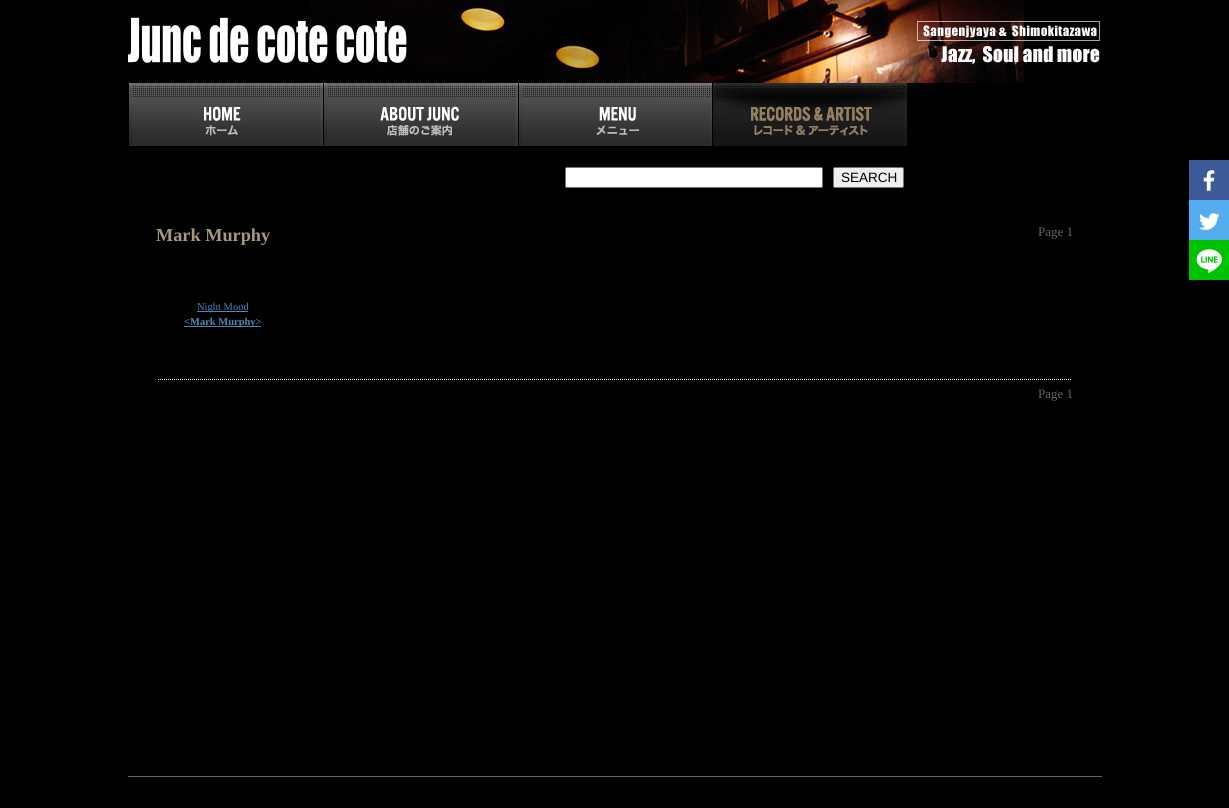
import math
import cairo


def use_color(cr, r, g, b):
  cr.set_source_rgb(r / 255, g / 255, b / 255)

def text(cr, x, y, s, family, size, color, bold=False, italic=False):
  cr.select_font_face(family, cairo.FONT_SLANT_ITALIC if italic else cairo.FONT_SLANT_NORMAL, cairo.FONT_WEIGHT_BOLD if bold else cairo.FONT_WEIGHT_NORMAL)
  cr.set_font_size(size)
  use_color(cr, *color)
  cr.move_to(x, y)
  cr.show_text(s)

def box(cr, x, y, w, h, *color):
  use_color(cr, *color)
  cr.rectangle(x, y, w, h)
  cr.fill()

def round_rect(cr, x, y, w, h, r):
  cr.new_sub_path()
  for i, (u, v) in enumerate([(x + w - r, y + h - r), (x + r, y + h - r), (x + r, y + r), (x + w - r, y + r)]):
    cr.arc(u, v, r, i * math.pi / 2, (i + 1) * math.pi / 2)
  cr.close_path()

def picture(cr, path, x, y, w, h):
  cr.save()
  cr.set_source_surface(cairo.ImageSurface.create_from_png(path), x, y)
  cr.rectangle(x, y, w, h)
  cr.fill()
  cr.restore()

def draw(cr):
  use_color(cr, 0, 0, 0)
  cr.paint()
  picture(cr, "img_01.png", 128, 0, 974, 83)
  picture(cr, "img_02.png", 129, 83, 194, 63)
  picture(cr, "img_03.png", 324, 83, 194, 63)
  picture(cr, "img_04.png", 519, 83, 193, 63)
  picture(cr, "img_05.png", 713, 83, 194, 63)
  use_color(cr, 255, 255, 255)
  round_rect(cr, 565.5, 167.5, 257, 20, 1.5)
  cr.fill_preserve()
  use_color(cr, 118, 118, 118)
  cr.set_line_width(1)
  cr.stroke()
  use_color(cr, 239, 239, 239)
  round_rect(cr, 833.5, 167.5, 70, 20, 1.5)
  cr.fill_preserve()
  use_color(cr, 118, 118, 118)
  cr.stroke()
  cr.new_path()
  cr.move_to(158, 379.5)
  cr.line_to(1072, 379.5)
  use_color(cr, 255, 255, 255)
  cr.set_dash([1, 1])
  cr.stroke()
  box(cr, 197, 311, 51, 1, 81, 134, 185)
  box(cr, 184, 326, 77, 1, 81, 134, 185)
  picture(cr, "img_06.png", 1189, 160, 40, 40)
  picture(cr, "img_07.png", 1189, 200, 40, 40)
  picture(cr, "img_08.png", 1189, 240, 40, 40)
  box(cr, 128, 776, 974, 1, 102, 102, 102)
  text(cr, 841, 182, "SEARCH", "Liberation Sans", 13.5, (0, 0, 0))
  text(cr, 156, 241, "Mark Murphy", "Liberation Serif", 18.25, (168, 152, 127), bold=True)
  text(cr, 1038, 236, "Page 1", "Liberation Serif", 13, (102, 102, 102))
  text(cr, 197, 310, "Night Mood", "Liberation Serif", 10.5, (81, 134, 185))
  text(cr, 184, 325, "<Mark Murphy>", "Liberation Serif", 10.5, (81, 134, 185), bold=True)
  text(cr, 1038, 398, "Page 1", "Liberation Serif", 13, (102, 102, 102))


surface = cairo.ImageSurface(cairo.FORMAT_RGB24, 1229, 808)
cr = cairo.Context(surface)
options = cairo.FontOptions()
options.set_hint_metrics(cairo.HINT_METRICS_OFF)
options.set_hint_style(cairo.HINT_STYLE_NONE)
cr.set_font_options(options)
cr.set_miter_limit(4)
draw(cr)
surface.write_to_png("out.png")
